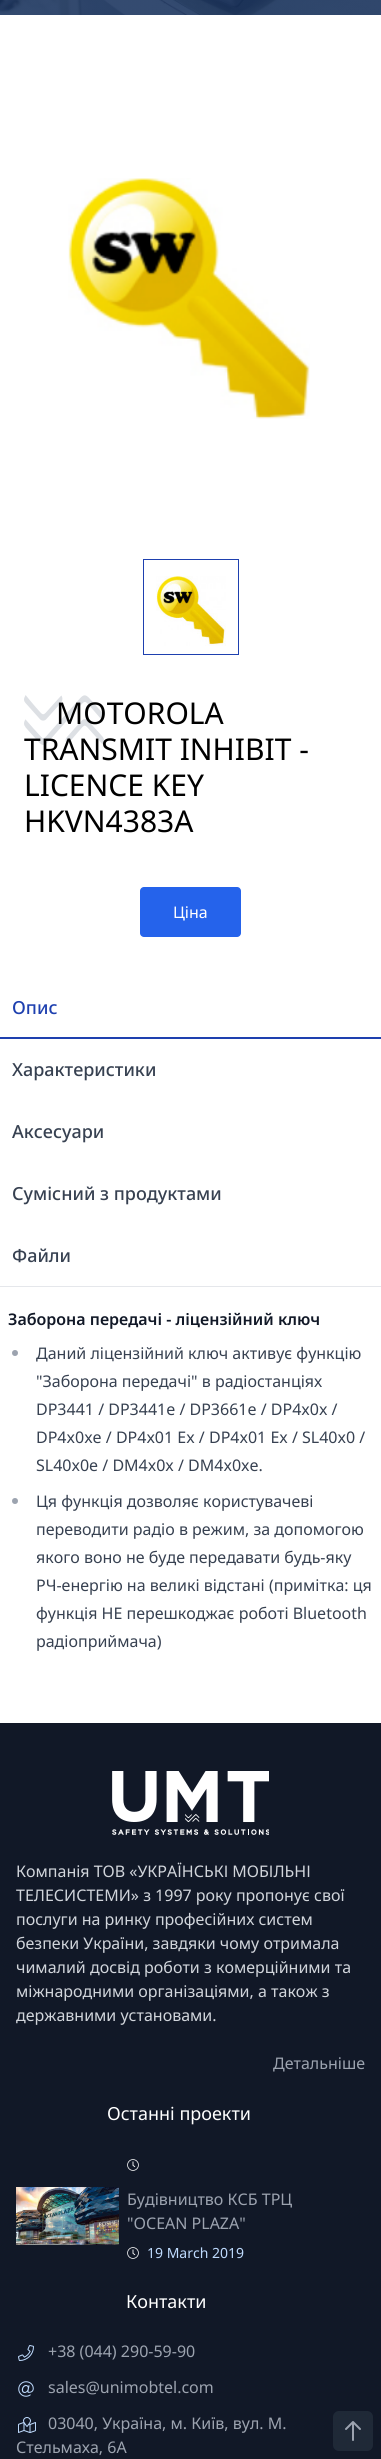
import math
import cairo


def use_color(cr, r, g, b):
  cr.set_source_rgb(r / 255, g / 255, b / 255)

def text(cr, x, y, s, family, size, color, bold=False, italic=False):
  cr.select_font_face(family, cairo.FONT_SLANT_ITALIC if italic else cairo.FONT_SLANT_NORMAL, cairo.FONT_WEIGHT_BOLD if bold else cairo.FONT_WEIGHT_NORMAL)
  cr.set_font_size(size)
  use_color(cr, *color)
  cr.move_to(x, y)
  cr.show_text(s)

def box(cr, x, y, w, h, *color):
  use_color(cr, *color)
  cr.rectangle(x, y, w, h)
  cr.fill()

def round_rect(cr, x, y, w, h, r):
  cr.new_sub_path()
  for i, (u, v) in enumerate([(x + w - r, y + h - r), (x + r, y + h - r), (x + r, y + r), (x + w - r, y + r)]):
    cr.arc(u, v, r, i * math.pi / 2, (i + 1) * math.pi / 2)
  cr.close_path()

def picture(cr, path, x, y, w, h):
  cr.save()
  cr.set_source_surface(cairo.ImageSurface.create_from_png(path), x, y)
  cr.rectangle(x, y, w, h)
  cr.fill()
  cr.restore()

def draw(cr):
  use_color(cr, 255, 255, 255)
  cr.paint()
  picture(cr, "img_01.png", 0, 0, 381, 15)
  picture(cr, "img_02.png", 68, 178, 242, 241)
  cr.rectangle(143.5, 559.5, 95, 95)
  use_color(cr, 30, 64, 175)
  cr.set_line_width(1)
  cr.stroke()
  picture(cr, "img_03.png", 156, 576, 70, 70)
  picture(cr, "img_04.png", 24, 695, 80, 50)
  use_color(cr, 37, 99, 235)
  round_rect(cr, 140, 887, 101, 50, 4)
  cr.fill()
  box(cr, 0, 1286, 381, 1, 229, 231, 235)
  box(cr, 0, 1037, 381, 2, 30, 64, 175)
  use_color(cr, 156, 163, 175)
  cr.arc(15, 1353, 3, 0, 2 * math.pi)
  cr.fill()
  cr.arc(15, 1501, 3, 0, 2 * math.pi)
  cr.fill()
  box(cr, 0, 1723, 381, 736, 17, 24, 39)
  picture(cr, "img_05.png", 112, 1771, 157, 64)
  picture(cr, "img_06.png", 127, 2159, 12, 12)
  picture(cr, "img_07.png", 16, 2187, 103, 58)
  picture(cr, "img_06.png", 127, 2247, 12, 12)
  picture(cr, "img_08.png", 18, 2345, 16, 16)
  picture(cr, "img_09.png", 18, 2381, 16, 16)
  picture(cr, "img_10.png", 18, 2417, 18, 16)
  use_color(cr, 31, 41, 55)
  round_rect(cr, 333, 2411, 40, 40, 6)
  cr.fill()
  cr.new_path()
  cr.move_to(346, 2429)
  cr.line_to(353, 2422)
  cr.move_to(353, 2422)
  cr.line_to(360, 2429)
  cr.move_to(353, 2422)
  cr.line_to(353, 2440)
  use_color(cr, 156, 163, 175)
  cr.set_line_width(2)
  cr.set_line_cap(cairo.LINE_CAP_ROUND)
  cr.set_line_join(cairo.LINE_JOIN_ROUND)
  cr.stroke()
  text(cr, 56, 724, "MOTOROLA", "Noto Sans", 30, (0, 0, 0))
  text(cr, 24, 760, "TRANSMIT INHIBIT -", "Noto Sans", 30, (0, 0, 0))
  text(cr, 24, 796, "LICENCE KEY", "Noto Sans", 30, (0, 0, 0))
  text(cr, 24, 832, "HKVN4383A", "Noto Sans", 30, (0, 0, 0))
  text(cr, 173, 918, "Ціна", "Noto Sans", 16, (255, 255, 255))
  text(cr, 12, 1014, "Опис", "Noto Sans Medium", 18, (30, 64, 175))
  text(cr, 12, 1076, "Характеристики", "Noto Sans Medium", 18, (55, 65, 81))
  text(cr, 12, 1138, "Аксесуари", "Noto Sans Medium", 18, (55, 65, 81))
  text(cr, 12, 1200, "Сумісний з продуктами", "Noto Sans Medium", 18, (55, 65, 81))
  text(cr, 12, 1262, "Файли", "Noto Sans Medium", 18, (55, 65, 81))
  text(cr, 8, 1325, "Заборона передачі - ліцензійний ключ", "Noto Sans SemiBold", 16, (17, 24, 39))
  text(cr, 36, 1359, "Даний ліцензійний ключ активує функцію", "Noto Sans", 16, (55, 65, 81))
  text(cr, 36, 1387, "\"Заборона передачі\" в радіостанціях", "Noto Sans", 16, (55, 65, 81))
  text(cr, 36, 1415, "DP3441 / DP3441e / DP3661e / DP4x0x /", "Noto Sans", 16, (55, 65, 81))
  text(cr, 36, 1443, "DP4x0xe / DP4x01 Ex / DP4x01 Ex / SL40x0 /", "Noto Sans", 16, (55, 65, 81))
  text(cr, 36, 1471, "SL40x0e / DM4x0x / DM4x0xe.", "Noto Sans", 16, (55, 65, 81))
  text(cr, 36, 1507, "Ця функція дозволяє користувачеві", "Noto Sans", 16, (55, 65, 81))
  text(cr, 36, 1535, "переводити радіо в режим, за допомогою", "Noto Sans", 16, (55, 65, 81))
  text(cr, 36, 1563, "якого воно не буде передавати будь-яку", "Noto Sans", 16, (55, 65, 81))
  text(cr, 36, 1591, "РЧ-енергію на великі відстані (примітка: ця", "Noto Sans", 16, (55, 65, 81))
  text(cr, 36, 1619, "функція НЕ перешкоджає роботі Bluetooth", "Noto Sans", 16, (55, 65, 81))
  text(cr, 36, 1647, "радіоприймача)", "Noto Sans", 16, (55, 65, 81))
  text(cr, 16, 1877, "Компанія ТОВ «УКРАЇНСЬКІ МОБІЛЬНІ", "Noto Sans", 16, (209, 213, 219))
  text(cr, 16, 1901, "ТЕЛЕСИСТЕМИ» з 1997 року пропонує свої", "Noto Sans", 16, (209, 213, 219))
  text(cr, 16, 1925, "послуги на ринку професійних систем", "Noto Sans", 16, (209, 213, 219))
  text(cr, 16, 1949, "безпеки України, завдяки чому отримала", "Noto Sans", 16, (209, 213, 219))
  text(cr, 16, 1973, "чималий досвід роботи з комерційними та", "Noto Sans", 16, (209, 213, 219))
  text(cr, 16, 1997, "міжнародними організаціями, а також з", "Noto Sans", 16, (209, 213, 219))
  text(cr, 16, 2021, "державними установами.", "Noto Sans", 16, (209, 213, 219))
  text(cr, 273, 2069, "Детальніше", "Noto Sans", 16, (156, 163, 175))
  text(cr, 107, 2120, "Останні проекти", "Noto Sans", 18, (255, 255, 255))
  text(cr, 127, 2205, "Будівництво КСБ ТРЦ", "Noto Sans", 16, (156, 163, 175))
  text(cr, 127, 2229, "\"OCEAN PLAZA\"", "Noto Sans", 16, (156, 163, 175))
  text(cr, 147, 2258, "19 March 2019", "Noto Sans", 14, (191, 219, 254))
  text(cr, 126, 2308, "Контакти", "Noto Sans", 18, (255, 255, 255))
  text(cr, 48, 2357, "+38 (044) 290-59-90", "Noto Sans", 16, (156, 163, 175))
  text(cr, 48, 2393, "sales@unimobtel.com", "Noto Sans", 16, (156, 163, 175))
  text(cr, 48, 2429, "03040, Україна, м. Київ, вул. М.", "Noto Sans", 16, (156, 163, 175))
  text(cr, 16, 2453, "Стельмаха, 6А", "Noto Sans", 16, (156, 163, 175))


surface = cairo.ImageSurface(cairo.FORMAT_RGB24, 381, 2459)
cr = cairo.Context(surface)
options = cairo.FontOptions()
options.set_hint_metrics(cairo.HINT_METRICS_OFF)
options.set_hint_style(cairo.HINT_STYLE_NONE)
cr.set_font_options(options)
cr.set_miter_limit(4)
draw(cr)
surface.write_to_png("out.png")
